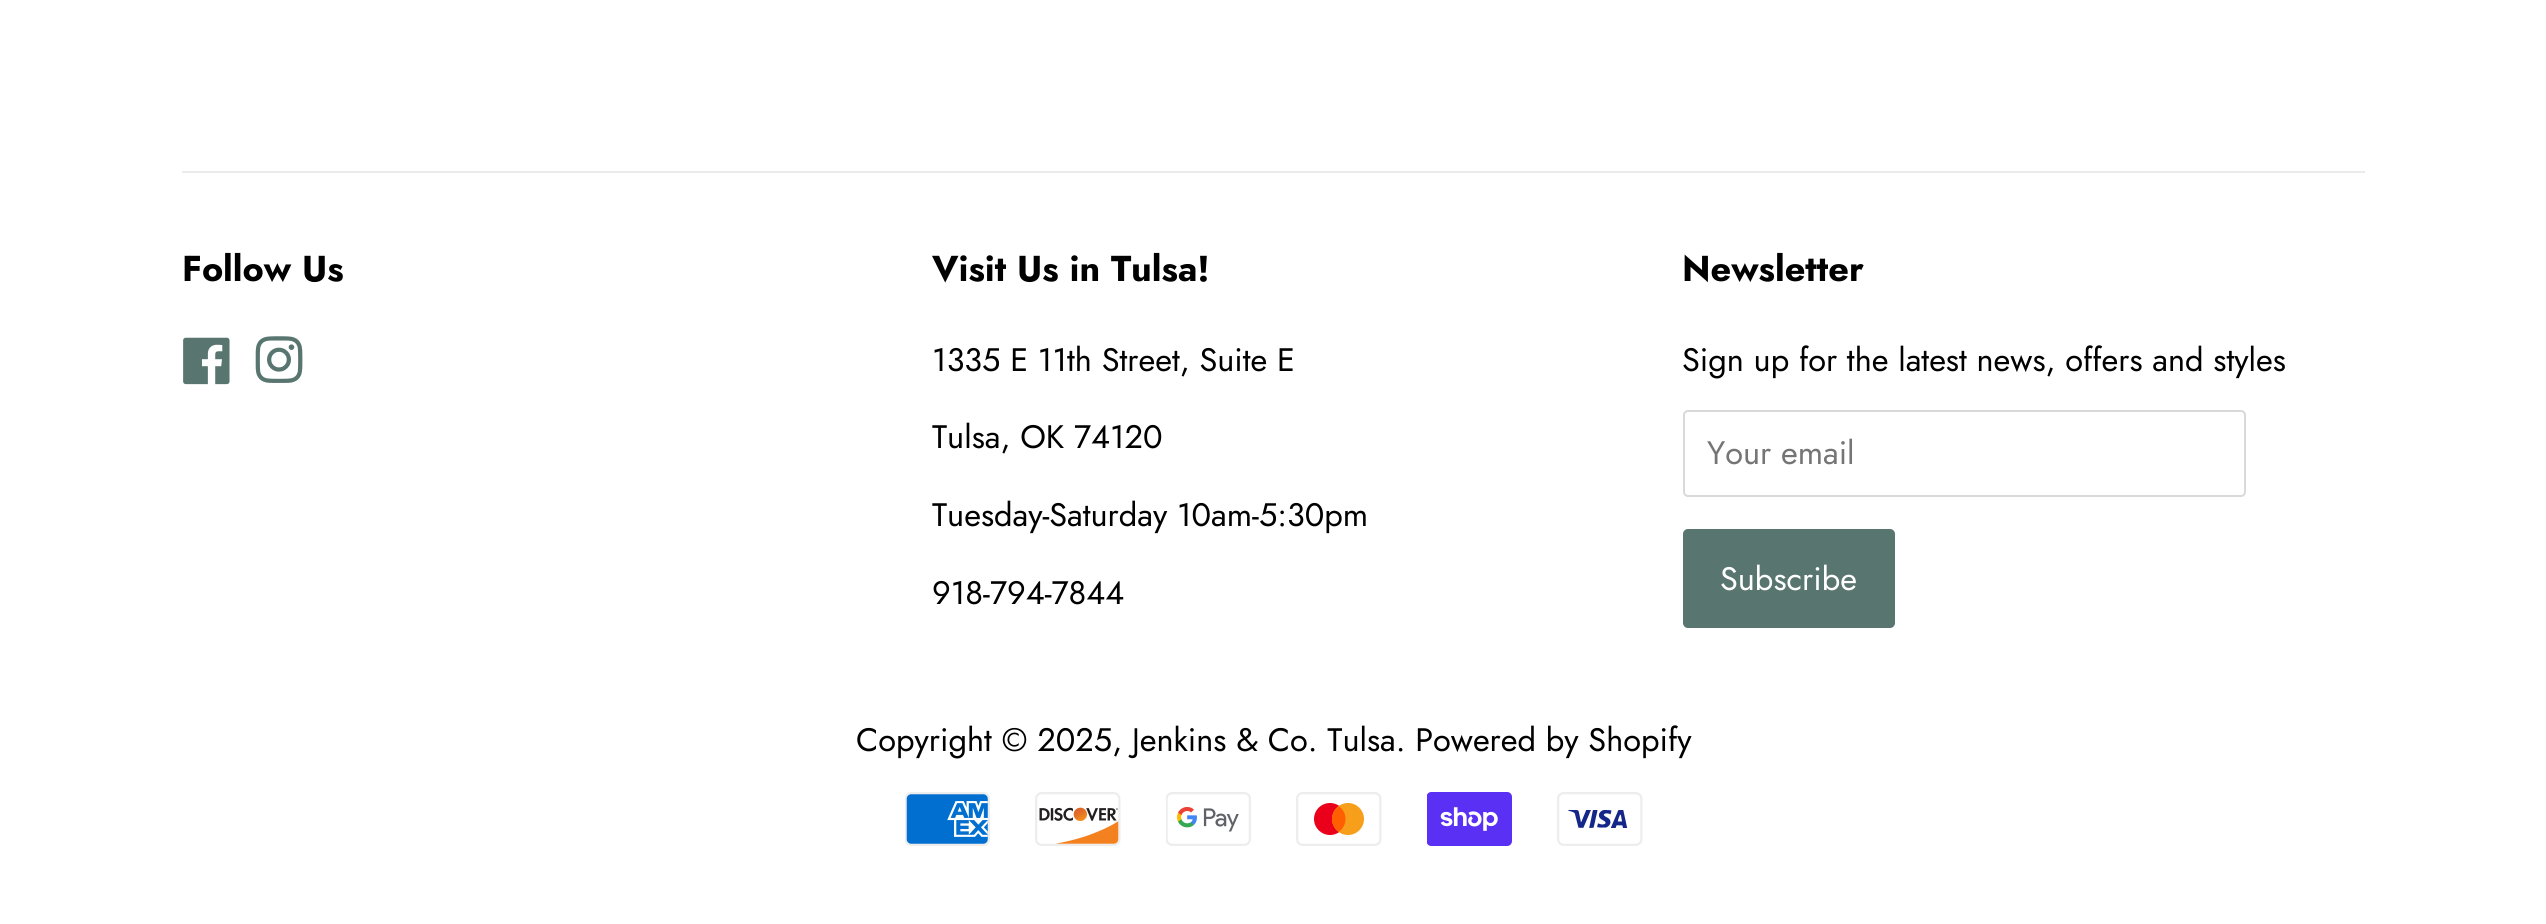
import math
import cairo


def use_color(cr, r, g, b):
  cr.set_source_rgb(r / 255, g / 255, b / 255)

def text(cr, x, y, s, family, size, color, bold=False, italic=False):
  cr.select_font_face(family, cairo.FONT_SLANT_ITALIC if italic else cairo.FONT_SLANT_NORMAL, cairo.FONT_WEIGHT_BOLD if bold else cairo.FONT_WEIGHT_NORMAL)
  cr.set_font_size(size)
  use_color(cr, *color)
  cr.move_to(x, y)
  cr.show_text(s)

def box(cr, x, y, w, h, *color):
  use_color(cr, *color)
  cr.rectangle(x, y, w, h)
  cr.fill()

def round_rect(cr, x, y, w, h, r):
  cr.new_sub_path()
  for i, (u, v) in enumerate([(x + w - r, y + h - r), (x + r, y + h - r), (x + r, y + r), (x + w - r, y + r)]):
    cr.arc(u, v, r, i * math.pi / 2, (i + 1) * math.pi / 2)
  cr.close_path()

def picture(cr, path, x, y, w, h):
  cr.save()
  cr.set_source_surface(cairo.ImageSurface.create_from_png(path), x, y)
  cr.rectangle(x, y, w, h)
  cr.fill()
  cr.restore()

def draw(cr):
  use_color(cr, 255, 255, 255)
  cr.paint()
  box(cr, 182, 171, 2183, 2, 235, 235, 235)
  picture(cr, "img_01.png", 183, 337, 47, 48)
  picture(cr, "img_02.png", 255, 336, 48, 47)
  round_rect(cr, 1684, 411, 561, 85, 4)
  use_color(cr, 217, 217, 217)
  cr.stroke()
  use_color(cr, 89, 117, 111)
  round_rect(cr, 1683, 529, 212, 99, 5)
  cr.fill()
  picture(cr, "img_03.png", 905, 792, 85, 54)
  picture(cr, "img_04.png", 1035, 792, 86, 54)
  picture(cr, "img_05.png", 1166, 792, 85, 54)
  picture(cr, "img_06.png", 1296, 792, 86, 54)
  picture(cr, "img_07.png", 1427, 792, 85, 54)
  picture(cr, "img_08.png", 1557, 792, 86, 54)
  text(cr, 182, 281, "Follow Us", "Jost", 36, (0, 0, 0), bold=True)
  text(cr, 932, 281, "Visit Us in Tulsa!", "Jost", 36, (0, 0, 0), bold=True)
  text(cr, 932, 371, "1335 E 11th Street, Suite E", "Jost", 32.5, (0, 0, 0))
  text(cr, 932, 448, "Tulsa, OK 74120", "Jost", 32.5, (0, 0, 0))
  text(cr, 932, 526, "Tuesday-Saturday 10am-5:30pm", "Jost", 32.5, (0, 0, 0))
  text(cr, 932, 604, "918-794-7844", "Jost", 32.5, (0, 0, 0))
  text(cr, 1682, 281, "Newsletter", "Jost", 36, (0, 0, 0), bold=True)
  text(cr, 1682, 371, "Sign up for the latest news, offers and styles", "Jost", 32.5, (0, 0, 0))
  text(cr, 1707, 464, "Your email", "Jost", 32.5, (117, 117, 117))
  text(cr, 1720, 590, "Subscribe", "Jost", 32.5, (255, 255, 255))
  text(cr, 856, 751, "Copyright © 2025, Jenkins & Co. Tulsa. Powered by Shopify", "Jost", 32.5, (0, 0, 0))


surface = cairo.ImageSurface(cairo.FORMAT_RGB24, 2546, 924)
cr = cairo.Context(surface)
options = cairo.FontOptions()
options.set_hint_metrics(cairo.HINT_METRICS_OFF)
options.set_hint_style(cairo.HINT_STYLE_NONE)
cr.set_font_options(options)
cr.set_miter_limit(4)
draw(cr)
surface.write_to_png("out.png")
